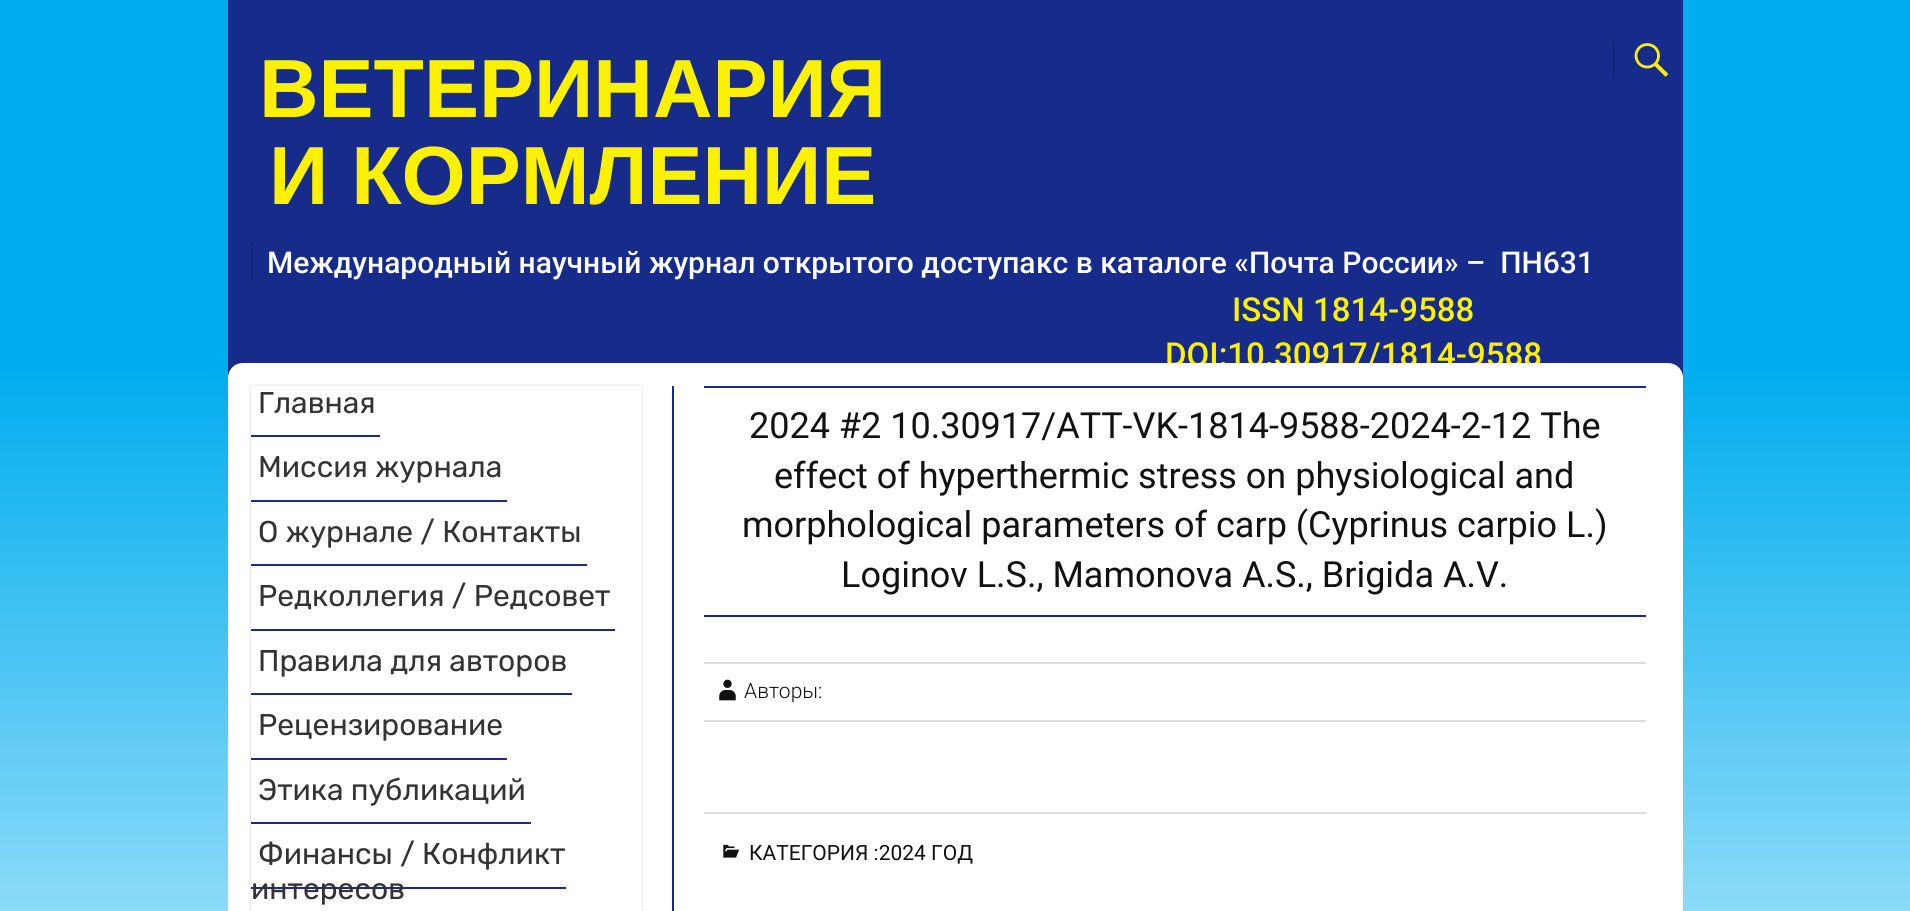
import math
import cairo


def use_color(cr, r, g, b):
  cr.set_source_rgb(r / 255, g / 255, b / 255)

def text(cr, x, y, s, family, size, color, bold=False, italic=False):
  cr.select_font_face(family, cairo.FONT_SLANT_ITALIC if italic else cairo.FONT_SLANT_NORMAL, cairo.FONT_WEIGHT_BOLD if bold else cairo.FONT_WEIGHT_NORMAL)
  cr.set_font_size(size)
  use_color(cr, *color)
  cr.move_to(x, y)
  cr.show_text(s)

def box(cr, x, y, w, h, *color):
  use_color(cr, *color)
  cr.rectangle(x, y, w, h)
  cr.fill()

def round_rect(cr, x, y, w, h, r):
  cr.new_sub_path()
  for i, (u, v) in enumerate([(x + w - r, y + h - r), (x + r, y + h - r), (x + r, y + r), (x + w - r, y + r)]):
    cr.arc(u, v, r, i * math.pi / 2, (i + 1) * math.pi / 2)
  cr.close_path()

def shadow(cr, x, y, w, h, r, blur, alpha):
  cr.push_group_with_content(cairo.CONTENT_ALPHA)
  cr.set_operator(cairo.OPERATOR_SOURCE)
  for i in range(15, -16, -2):
    e = blur * i / 6
    if min(w, h) + 2 * e > 0:
      cr.set_source_rgba(0, 0, 0, alpha * math.erfc((i - 1) / 8.5) / 2)
      round_rect(cr, x - e, y - e, w + 2 * e, h + 2 * e, max(0, min(r + e + blur * .6, min(w, h) / 2 + e)))
      cr.fill()
  cr.mask(cr.pop_group())

def picture(cr, path, x, y, w, h):
  cr.save()
  cr.set_source_surface(cairo.ImageSurface.create_from_png(path), x, y)
  cr.rectangle(x, y, w, h)
  cr.fill()
  cr.restore()

def draw(cr):
  use_color(cr, 0, 173, 238)
  cr.paint()
  gradient = cairo.LinearGradient(956, 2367, 956, 363)
  gradient.add_color_stop_rgba(0, 1, 1, 1, 1)
  gradient.add_color_stop_rgba(0.5, 1, 1, 1, 1)
  gradient.add_color_stop_rgba(1, 0, 0.678, 0.933, 1)
  cr.set_source(gradient)
  cr.rectangle(0, 373, 1910, 538)
  cr.fill()
  box(cr, 228, 0, 1455, 378, 23, 43, 138)
  box(cr, 251, 242, 2, 42, 20, 37, 117)
  box(cr, 1613, 42, 2, 36, 20, 37, 117)
  picture(cr, "img_01.png", 1634, 43, 35, 34)
  text(cr, 259, 117, "ВЕТЕРИНАРИЯ", "Liberation Sans", 82.5, (252, 241, 4), bold=True)
  text(cr, 269, 204, "И КОРМЛЕНИЕ", "Liberation Sans", 82.5, (252, 241, 4), bold=True)
  text(cr, 267, 273, "Международный научный журнал открытого доступа", "Roboto Medium", 30, (255, 255, 255))
  text(cr, 1036, 273, "кс в каталоге «Почта России» –  ПН631", "Roboto Medium", 30, (255, 255, 255))
  text(cr, 1232, 321, "ISSN 1814-9588", "Roboto Medium", 33, (252, 241, 4))
  text(cr, 1165, 366, "DOI:10.30917/1814-9588", "Roboto Medium", 33, (252, 241, 4))
  use_color(cr, 255, 255, 255)
  cr.new_path()
  cr.move_to(243, 363)
  cr.line_to(1668, 363)
  cr.curve_to(1676.5, 363, 1683, 369.5, 1683, 378)
  cr.line_to(1683, 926)
  cr.line_to(228, 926)
  cr.line_to(228, 378)
  cr.curve_to(228, 369.5, 234.5, 363, 243, 363)
  cr.close_path()
  cr.fill()
  box(cr, 672, 386, 2, 525, 23, 43, 138)
  cr.save()
  cr.set_fill_rule(cairo.FILL_RULE_EVEN_ODD)
  cr.new_path()
  cr.move_to(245, 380)
  cr.line_to(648, 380)
  cr.line_to(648, 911)
  cr.line_to(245, 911)
  cr.close_path()
  cr.move_to(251, 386)
  cr.line_to(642, 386)
  cr.line_to(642, 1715)
  cr.line_to(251, 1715)
  cr.close_path()
  cr.clip()
  use_color(cr, 0, 0, 0)
  shadow(cr, 251, 386, 391, 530, 0, 1.5, 0.17)
  cr.restore()
  text(cr, 258, 413, "Главная", "Rubik Light", 30, (51, 51, 51))
  box(cr, 251, 435, 129, 2, 24, 43, 138)
  text(cr, 258, 477, "Миссия журнала", "Rubik Light", 30, (51, 51, 51))
  box(cr, 251, 500, 256, 2, 24, 43, 138)
  text(cr, 258, 542, "О журнале / Контакты", "Rubik Light", 30, (51, 51, 51))
  box(cr, 251, 564, 336, 2, 24, 43, 138)
  text(cr, 258, 606, "Редколлегия / Редсовет", "Rubik Light", 30, (51, 51, 51))
  box(cr, 251, 629, 364, 2, 24, 43, 138)
  text(cr, 258, 671, "Правила для авторов", "Rubik Light", 30, (51, 51, 51))
  box(cr, 251, 693, 321, 2, 24, 43, 138)
  text(cr, 258, 735, "Рецензирование", "Rubik Light", 30, (51, 51, 51))
  box(cr, 251, 758, 256, 2, 24, 43, 138)
  text(cr, 258, 800, "Этика публикаций", "Rubik Light", 30, (51, 51, 51))
  box(cr, 251, 822, 280, 2, 24, 43, 138)
  text(cr, 258, 864, "Финансы / Конфликт", "Rubik Light", 30, (51, 51, 51))
  box(cr, 251, 887, 315, 2, 24, 43, 138)
  text(cr, 251, 899, "интересов", "Rubik Light", 30, (51, 51, 51))
  box(cr, 704, 386, 942, 2, 23, 43, 138)
  box(cr, 704, 615, 942, 2, 23, 43, 138)
  text(cr, 749, 438, "2024 #2 10.30917/ATT-VK-1814-9588-2024-2-12 The", "Roboto", 36, (17, 17, 17))
  text(cr, 774, 488, "effect of hyperthermic stress on physiological and", "Roboto", 36, (17, 17, 17))
  text(cr, 742, 537, "morphological parameters of carp (Cyprinus carpio L.)", "Roboto", 36, (17, 17, 17))
  text(cr, 841, 587, "Loginov L.S., Mamonova A.S., Brigida A.V.", "Roboto", 36, (17, 17, 17))
  box(cr, 704, 662, 942, 2, 221, 221, 221)
  box(cr, 704, 720, 942, 2, 221, 221, 221)
  picture(cr, "img_02.png", 719, 679, 17, 22)
  text(cr, 744, 698, "Авторы:", "Roboto Light", 21, (17, 17, 17))
  box(cr, 704, 812, 942, 2, 221, 221, 221)
  picture(cr, "img_03.png", 723, 844, 17, 14)
  text(cr, 749, 860, "КАТЕГОРИЯ :2024 ГОД", "Roboto", 21, (17, 17, 17))


surface = cairo.ImageSurface(cairo.FORMAT_RGB24, 1910, 911)
cr = cairo.Context(surface)
options = cairo.FontOptions()
options.set_hint_metrics(cairo.HINT_METRICS_OFF)
options.set_hint_style(cairo.HINT_STYLE_NONE)
cr.set_font_options(options)
cr.set_miter_limit(4)
draw(cr)
surface.write_to_png("out.png")
